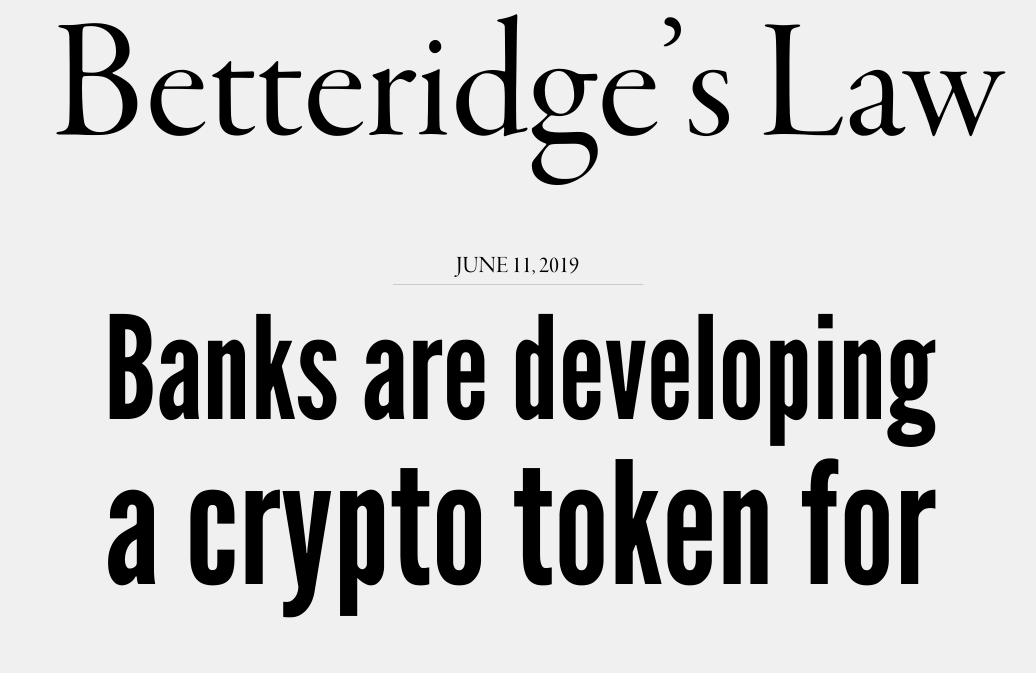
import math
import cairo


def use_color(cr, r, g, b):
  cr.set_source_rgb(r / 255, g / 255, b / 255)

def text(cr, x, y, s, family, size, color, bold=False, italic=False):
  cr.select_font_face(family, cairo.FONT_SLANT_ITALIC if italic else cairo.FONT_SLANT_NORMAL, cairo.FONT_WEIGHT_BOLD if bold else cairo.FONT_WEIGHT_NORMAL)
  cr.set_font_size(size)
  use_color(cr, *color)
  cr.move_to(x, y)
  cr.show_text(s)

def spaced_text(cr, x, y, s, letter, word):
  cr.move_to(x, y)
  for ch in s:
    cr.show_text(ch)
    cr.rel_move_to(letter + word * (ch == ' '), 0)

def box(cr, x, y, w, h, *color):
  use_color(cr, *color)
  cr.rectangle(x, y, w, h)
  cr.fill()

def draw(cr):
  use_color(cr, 240, 240, 240)
  cr.paint()
  box(cr, 393, 284, 250, 1, 204, 204, 204)
  cr.select_font_face("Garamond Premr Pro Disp")
  cr.set_font_size(173.5)
  use_color(cr, 0, 0, 0)
  spaced_text(cr, 52, 134, "Betteridge’s Law", 0, -1)
  text(cr, 456, 272, "JUNE 11, 2019", "Garamond Premr Pro Disp", 24, (0, 0, 0))
  text(cr, 104, 419, "Banks are developing", "League Gothic", 143, (0, 0, 0))
  text(cr, 104, 584, "a crypto token for", "League Gothic", 170, (0, 0, 0))


surface = cairo.ImageSurface(cairo.FORMAT_RGB24, 1036, 673)
cr = cairo.Context(surface)
options = cairo.FontOptions()
options.set_hint_metrics(cairo.HINT_METRICS_OFF)
options.set_hint_style(cairo.HINT_STYLE_NONE)
cr.set_font_options(options)
cr.set_miter_limit(4)
draw(cr)
surface.write_to_png("out.png")
